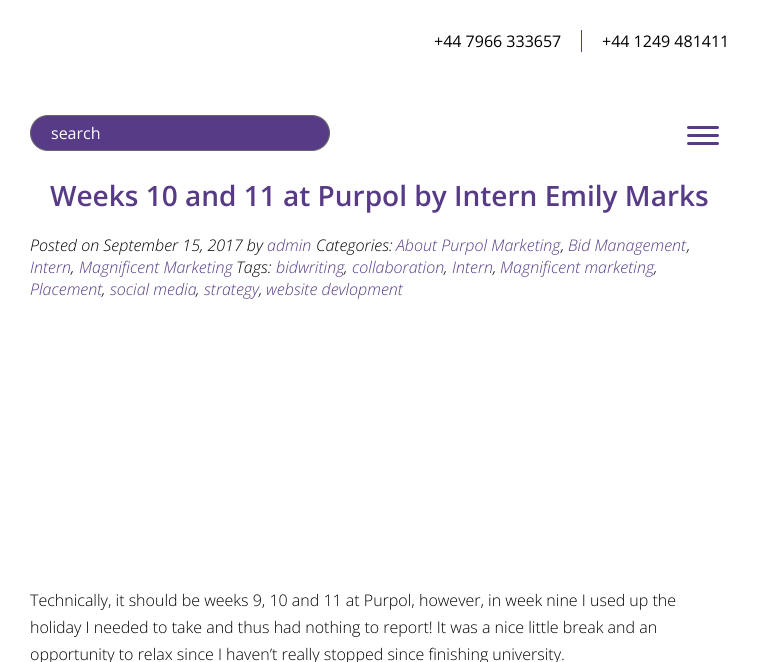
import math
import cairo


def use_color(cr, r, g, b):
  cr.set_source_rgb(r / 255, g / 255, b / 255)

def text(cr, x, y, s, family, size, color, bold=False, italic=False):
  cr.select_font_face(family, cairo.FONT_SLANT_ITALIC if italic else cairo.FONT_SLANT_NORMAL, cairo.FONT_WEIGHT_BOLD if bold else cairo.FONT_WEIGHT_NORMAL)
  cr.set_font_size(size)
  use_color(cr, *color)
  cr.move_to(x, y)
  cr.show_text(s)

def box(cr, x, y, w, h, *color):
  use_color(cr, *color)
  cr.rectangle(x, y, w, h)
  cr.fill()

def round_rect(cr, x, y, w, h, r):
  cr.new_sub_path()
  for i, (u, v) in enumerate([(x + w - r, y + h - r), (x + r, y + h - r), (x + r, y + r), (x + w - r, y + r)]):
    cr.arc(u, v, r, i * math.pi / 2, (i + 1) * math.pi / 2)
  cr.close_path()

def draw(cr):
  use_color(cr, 255, 255, 255)
  cr.paint()
  box(cr, 581, 30, 1, 22, 87, 59, 134)
  round_rect(cr, 30.5, 115.5, 299, 35, 17.5)
  cr.fill_preserve()
  use_color(cr, 102, 102, 102)
  cr.set_line_width(1)
  cr.stroke()
  use_color(cr, 87, 59, 134)
  round_rect(cr, 687, 126, 32, 3, 1.5)
  cr.fill()
  round_rect(cr, 687, 134, 32, 3, 1.5)
  cr.fill()
  round_rect(cr, 687, 142, 32, 3, 1.5)
  cr.fill()
  text(cr, 434, 47, "+44 7966 333657", "Open Sans", 16, (0, 0, 0))
  text(cr, 602, 47, "+44 1249 481411", "Open Sans", 16, (0, 0, 0))
  text(cr, 51, 139, "search", "Open Sans", 16, (255, 255, 255))
  text(cr, 50, 206, "Weeks 10 and 11 at Purpol by Intern Emily Marks", "Open Sans SemiBold", 28, (87, 59, 134))
  text(cr, 30, 251, "Posted on September 15, 2017 by", "Open Sans Light", 16, (0, 0, 0), italic=True)
  text(cr, 267, 251, "admin", "Open Sans Light", 16, (87, 59, 134), italic=True)
  text(cr, 316, 251, "Categories:", "Open Sans Light", 16, (0, 0, 0), italic=True)
  text(cr, 396, 251, "About Purpol Marketing", "Open Sans Light", 16, (87, 59, 134), italic=True)
  text(cr, 568, 251, "Bid Management", "Open Sans Light", 16, (87, 59, 134), italic=True)
  text(cr, 561, 251, ",", "Open Sans Light", 16, (0, 0, 0), italic=True)
  text(cr, 687, 251, ",", "Open Sans Light", 16, (0, 0, 0), italic=True)
  text(cr, 30, 273, "Intern", "Open Sans Light", 16, (87, 59, 134), italic=True)
  text(cr, 71, 273, ",", "Open Sans Light", 16, (0, 0, 0), italic=True)
  text(cr, 79, 273, "Magnificent Marketing", "Open Sans Light", 16, (87, 59, 134), italic=True)
  text(cr, 236, 273, "Tags:", "Open Sans Light", 16, (0, 0, 0), italic=True)
  text(cr, 276, 273, "bidwriting", "Open Sans Light", 16, (87, 59, 134), italic=True)
  text(cr, 352, 273, "collaboration", "Open Sans Light", 16, (87, 59, 134), italic=True)
  text(cr, 452, 273, "Intern", "Open Sans Light", 16, (87, 59, 134), italic=True)
  text(cr, 500, 273, "Magnificent marketing", "Open Sans Light", 16, (87, 59, 134), italic=True)
  text(cr, 344, 273, ",", "Open Sans Light", 16, (0, 0, 0), italic=True)
  text(cr, 444, 273, ",", "Open Sans Light", 16, (0, 0, 0), italic=True)
  text(cr, 493, 273, ",", "Open Sans Light", 16, (0, 0, 0), italic=True)
  text(cr, 654, 273, ",", "Open Sans Light", 16, (0, 0, 0), italic=True)
  text(cr, 30, 295, "Placement", "Open Sans Light", 16, (87, 59, 134), italic=True)
  text(cr, 110, 295, "social media", "Open Sans Light", 16, (87, 59, 134), italic=True)
  text(cr, 204, 295, "strategy", "Open Sans Light", 16, (87, 59, 134), italic=True)
  text(cr, 266, 295, "website devlopment", "Open Sans Light", 16, (87, 59, 134), italic=True)
  text(cr, 102, 295, ",", "Open Sans Light", 16, (0, 0, 0), italic=True)
  text(cr, 196, 295, ",", "Open Sans Light", 16, (0, 0, 0), italic=True)
  text(cr, 259, 295, ",", "Open Sans Light", 16, (0, 0, 0), italic=True)
  text(cr, 30, 606, "Technically, it should be weeks 9, 10 and 11 at Purpol, however, in week nine I used up the", "Open Sans Light", 16, (0, 0, 0))
  text(cr, 30, 633, "holiday I needed to take and thus had nothing to report! It was a nice little break and an", "Open Sans Light", 16, (0, 0, 0))
  text(cr, 30, 660, "opportunity to relax since I haven’t really stopped since finishing university.", "Open Sans Light", 16, (0, 0, 0))


surface = cairo.ImageSurface(cairo.FORMAT_RGB24, 759, 662)
cr = cairo.Context(surface)
options = cairo.FontOptions()
options.set_hint_metrics(cairo.HINT_METRICS_OFF)
options.set_hint_style(cairo.HINT_STYLE_NONE)
cr.set_font_options(options)
cr.set_miter_limit(4)
draw(cr)
surface.write_to_png("out.png")
